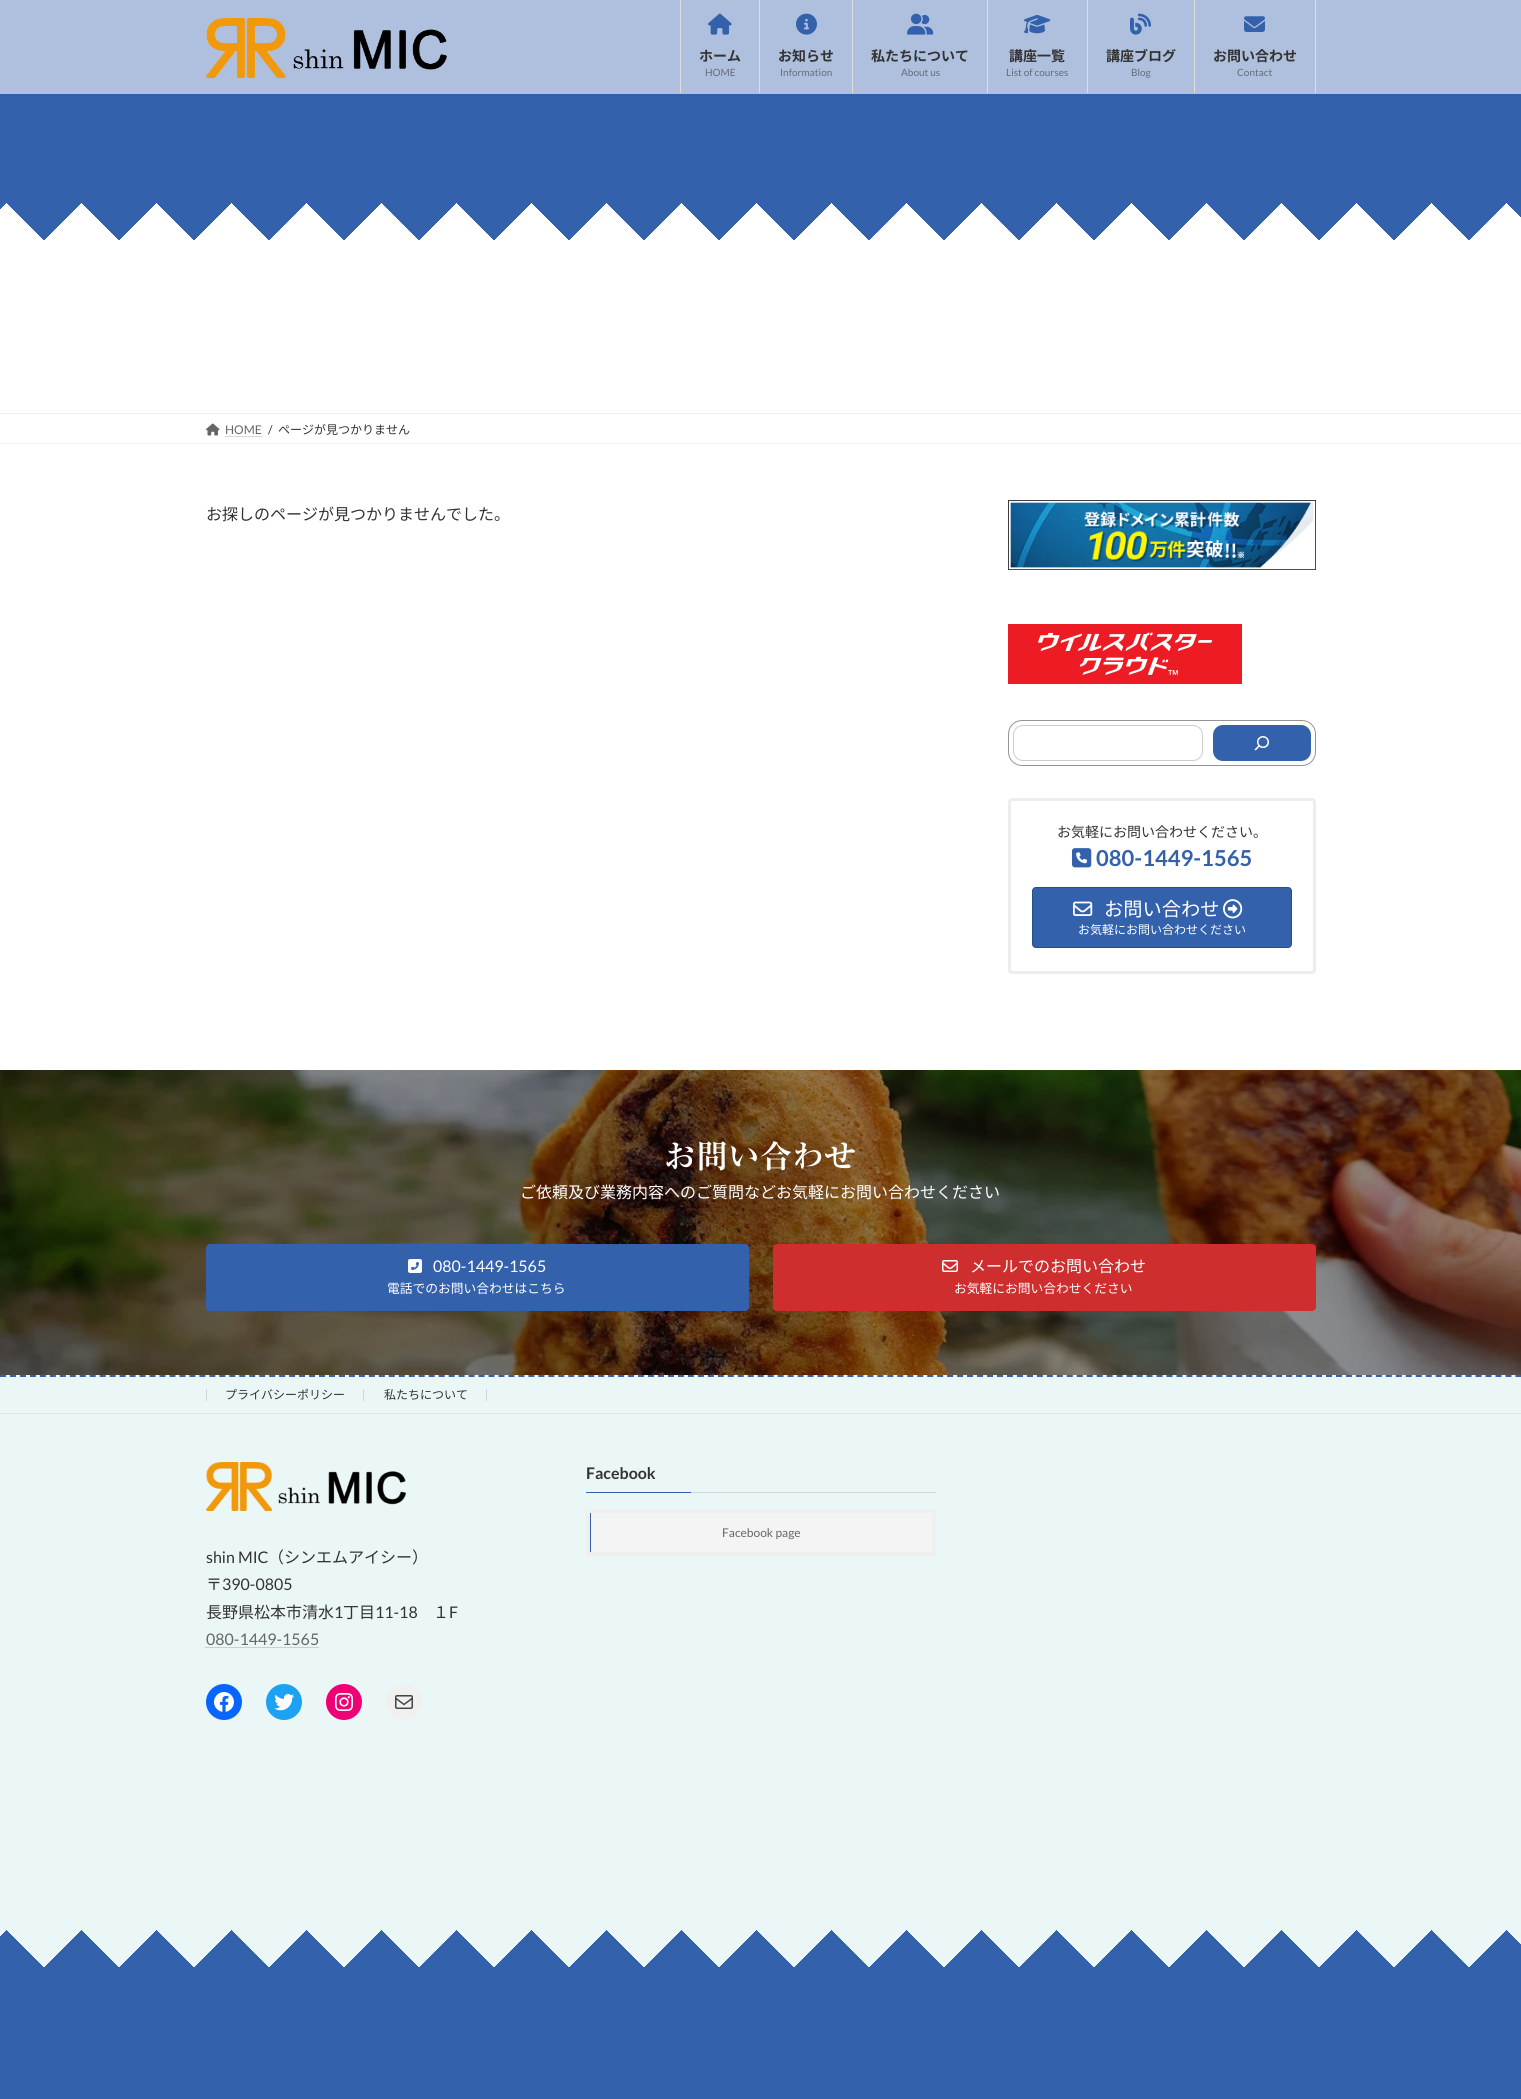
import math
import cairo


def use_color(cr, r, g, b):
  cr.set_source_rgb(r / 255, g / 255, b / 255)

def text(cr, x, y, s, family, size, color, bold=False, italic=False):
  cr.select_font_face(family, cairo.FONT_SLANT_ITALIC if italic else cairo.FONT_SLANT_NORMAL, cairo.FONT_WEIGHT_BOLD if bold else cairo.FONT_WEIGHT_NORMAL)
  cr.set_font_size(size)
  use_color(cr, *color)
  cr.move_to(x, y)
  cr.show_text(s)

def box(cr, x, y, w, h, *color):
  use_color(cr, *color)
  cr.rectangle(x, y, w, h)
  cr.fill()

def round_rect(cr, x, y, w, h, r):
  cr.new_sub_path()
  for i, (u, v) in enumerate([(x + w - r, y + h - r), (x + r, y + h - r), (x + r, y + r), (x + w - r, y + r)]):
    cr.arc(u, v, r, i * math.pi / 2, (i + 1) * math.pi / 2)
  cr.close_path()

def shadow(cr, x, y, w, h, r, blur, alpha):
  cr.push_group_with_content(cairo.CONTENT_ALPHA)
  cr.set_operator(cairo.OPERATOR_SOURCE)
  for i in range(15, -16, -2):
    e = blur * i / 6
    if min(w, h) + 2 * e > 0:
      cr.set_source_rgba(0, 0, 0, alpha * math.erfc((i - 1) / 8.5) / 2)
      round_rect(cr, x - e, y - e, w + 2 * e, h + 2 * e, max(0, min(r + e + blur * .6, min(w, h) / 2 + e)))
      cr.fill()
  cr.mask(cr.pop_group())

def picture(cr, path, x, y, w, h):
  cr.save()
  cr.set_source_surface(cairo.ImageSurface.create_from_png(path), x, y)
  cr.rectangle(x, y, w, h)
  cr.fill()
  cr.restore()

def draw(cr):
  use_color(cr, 255, 255, 255)
  cr.paint()
  box(cr, 0, 94, 1521, 109, 52, 97, 172)
  use_color(cr, 0, 0, 0)
  shadow(cr, 0, 1, 1521, 94, 0, 1.5, 0.05)
  box(cr, 0, 0, 1521, 94, 174, 192, 222)
  picture(cr, "img_01.png", 206, 18, 241, 60)
  box(cr, 759, 0, 1, 93, 221, 221, 221)
  box(cr, 680, 0, 1, 93, 221, 221, 221)
  picture(cr, "img_02.png", 708, 13, 24, 22)
  box(cr, 852, 0, 1, 93, 221, 221, 221)
  picture(cr, "img_03.png", 796, 13, 21, 22)
  box(cr, 987, 0, 1, 93, 221, 221, 221)
  picture(cr, "img_04.png", 907, 13, 27, 22)
  box(cr, 1087, 0, 1, 93, 221, 221, 221)
  picture(cr, "img_05.png", 1024, 15, 27, 19)
  box(cr, 1194, 0, 1, 93, 221, 221, 221)
  picture(cr, "img_06.png", 1130, 13, 21, 22)
  box(cr, 1315, 0, 1, 93, 221, 221, 221)
  picture(cr, "img_07.png", 1244, 16, 21, 16)
  picture(cr, "img_08.png", 7, 203, 1514, 37)
  picture(cr, "img_09.png", 0, 203, 1506, 37)
  box(cr, 0, 413, 1521, 1, 240, 240, 240)
  box(cr, 0, 443, 1521, 1, 240, 240, 240)
  picture(cr, "img_10.png", 206, 423, 14, 13)
  cr.new_path()
  cr.move_to(225.5, 436.5)
  cr.line_to(262, 436.5)
  use_color(cr, 179, 179, 179)
  cr.set_line_width(1)
  cr.set_dash([1, 1])
  cr.stroke()
  picture(cr, "img_11.png", 1008, 500, 308, 70)
  picture(cr, "img_12.png", 1008, 624, 234, 60)
  round_rect(cr, 1008.5, 720.5, 307, 45, 13.5)
  use_color(cr, 148, 148, 148)
  cr.set_dash([])
  cr.stroke()
  round_rect(cr, 1013.5, 725.5, 189, 35, 9.5)
  use_color(cr, 204, 204, 204)
  cr.stroke()
  use_color(cr, 52, 97, 172)
  round_rect(cr, 1213, 725, 98, 36, 10)
  cr.fill()
  picture(cr, "img_13.png", 1254, 736, 16, 15)
  round_rect(cr, 1009.5, 799.5, 305, 173, 2.5)
  use_color(cr, 237, 237, 237)
  cr.set_line_width(3)
  cr.stroke()
  picture(cr, "img_14.png", 1072, 848, 20, 20)
  use_color(cr, 52, 97, 172)
  round_rect(cr, 1032.5, 887.5, 259, 60, 3.5)
  cr.fill_preserve()
  use_color(cr, 42, 78, 138)
  cr.set_line_width(1)
  cr.stroke()
  picture(cr, "img_15.png", 1073, 901, 20, 15)
  picture(cr, "img_16.png", 1223, 899, 20, 20)
  picture(cr, "img_17.png", 0, 1070, 1521, 305)
  use_color(cr, 52, 97, 172)
  round_rect(cr, 206, 1244, 543, 67, 4)
  cr.fill()
  picture(cr, "img_18.png", 408, 1259, 14, 14)
  use_color(cr, 207, 46, 46)
  round_rect(cr, 773, 1244, 543, 67, 4)
  cr.fill()
  picture(cr, "img_19.png", 942, 1260, 16, 12)
  box(cr, 0, 1375, 1521, 555, 235, 246, 247)
  cr.new_path()
  cr.move_to(0, 1376)
  cr.line_to(1521, 1376)
  use_color(cr, 52, 97, 172)
  cr.set_line_width(2)
  cr.set_dash([6, 3.97])
  cr.stroke()
  box(cr, 0, 1413, 1521, 1, 221, 231, 232)
  box(cr, 363, 1389, 1, 12, 207, 216, 217)
  box(cr, 206, 1389, 1, 12, 207, 216, 217)
  box(cr, 486, 1389, 1, 12, 207, 216, 217)
  box(cr, 691, 1492, 245, 1, 207, 216, 217)
  box(cr, 586, 1492, 105, 1, 52, 97, 172)
  cr.rectangle(588, 1511, 346, 43)
  use_color(cr, 239, 239, 239)
  cr.set_line_width(4)
  cr.set_dash([])
  cr.stroke()
  box(cr, 591, 1513, 341, 39, 244, 244, 244)
  box(cr, 590, 1513, 1, 39, 52, 97, 172)
  picture(cr, "img_20.png", 206, 1462, 200, 49)
  cr.new_path()
  cr.move_to(205.5, 1647.5)
  cr.line_to(318.5, 1647.5)
  use_color(cr, 165, 172, 173)
  cr.set_line_width(1)
  cr.set_dash([1, 1])
  cr.stroke()
  use_color(cr, 8, 102, 255)
  cr.arc(224, 1702, 18, 0, 2 * math.pi)
  cr.fill()
  picture(cr, "img_21.png", 214, 1692, 20, 20)
  use_color(cr, 29, 161, 242)
  cr.arc(284, 1702, 18, 0, 2 * math.pi)
  cr.fill()
  picture(cr, "img_22.png", 274, 1694, 20, 17)
  use_color(cr, 240, 0, 117)
  cr.arc(344, 1702, 18, 0, 2 * math.pi)
  cr.fill()
  picture(cr, "img_23.png", 335, 1693, 18, 18)
  use_color(cr, 240, 240, 240)
  cr.arc(404, 1702, 18, 0, 2 * math.pi)
  cr.fill()
  picture(cr, "img_24.png", 395, 1695, 18, 14)
  box(cr, 0, 1930, 1521, 169, 52, 97, 172)
  picture(cr, "img_25.png", 7, 1930, 1514, 37)
  picture(cr, "img_26.png", 0, 1930, 1506, 37)
  text(cr, 699, 61, "ホーム", "Noto Sans JP", 14, (51, 51, 51), bold=True)
  text(cr, 705, 76, "HOME", "Lato", 10, (100, 107, 119))
  text(cr, 778, 61, "お知らせ", "Noto Sans JP", 14, (51, 51, 51), bold=True)
  text(cr, 780, 76, "Information", "Lato", 10, (100, 107, 119))
  text(cr, 871, 61, "私たちについて", "Noto Sans JP", 14, (51, 51, 51), bold=True)
  text(cr, 901, 76, "About us", "Lato", 10, (100, 107, 119))
  text(cr, 1009, 61, "講座一覧", "Noto Sans JP", 14, (51, 51, 51), bold=True)
  text(cr, 1006, 76, "List of courses", "Lato", 10, (100, 107, 119))
  text(cr, 1106, 61, "講座ブログ", "Noto Sans JP", 14, (51, 51, 51), bold=True)
  text(cr, 1131, 76, "Blog", "Lato", 10, (100, 107, 119))
  text(cr, 1213, 61, "お問い合わせ", "Noto Sans JP", 14, (51, 51, 51), bold=True)
  text(cr, 1237, 76, "Contact", "Lato", 10, (100, 107, 119))
  text(cr, 225, 434, "HOME", "Lato", 12, (102, 102, 102))
  text(cr, 268, 434, "/", "Lato", 12, (51, 51, 51))
  text(cr, 278, 434, "ページが見つかりません", "Noto Sans JP", 12, (51, 51, 51))
  text(cr, 206, 520, "お探しのページが見つかりませんでした。", "Noto Sans JP", 16, (51, 51, 51))
  text(cr, 1057, 837, "お気軽にお問い合わせください。", "Noto Sans JP", 14, (51, 51, 51))
  text(cr, 1096, 866, "080-1449-1565", "Lato", 22, (52, 97, 172), bold=True)
  text(cr, 1104, 916, "お問い合わせ", "Noto Sans JP", 19.25, (255, 255, 255))
  text(cr, 1078, 934, "お気軽にお問い合わせください", "Noto Sans JP", 12, (255, 255, 255))
  text(cr, 664, 1168, "お問い合わせ", "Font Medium", 32, (255, 255, 255))
  text(cr, 520, 1198, "ご依頼及び業務内容へのご質問などお気軽にお問い合わせください", "Noto Sans JP", 16, (255, 255, 255))
  text(cr, 433, 1272, "080-1449-1565", "Lato", 16, (255, 255, 255))
  text(cr, 387, 1293, "電話でのお問い合わせはこちら", "Noto Sans JP", 12.75, (255, 255, 255))
  text(cr, 970, 1272, "メールでのお問い合わせ", "Noto Sans JP", 16, (255, 255, 255))
  text(cr, 954, 1293, "お気軽にお問い合わせください", "Noto Sans JP", 12.75, (255, 255, 255))
  text(cr, 225, 1399, "プライバシーポリシー", "Noto Sans JP", 12, (51, 51, 51))
  text(cr, 384, 1399, "私たちについて", "Noto Sans JP", 12, (51, 51, 51))
  text(cr, 586, 1479, "Facebook", "Lato", 16, (51, 51, 51), bold=True)
  text(cr, 722, 1537, "Facebook page", "Lato", 12, (102, 102, 102))
  text(cr, 206, 1563, "shin MIC", "Lato", 16, (51, 51, 51))
  text(cr, 268, 1563, "（シンエムアイシー）", "Noto Sans JP", 16, (51, 51, 51))
  text(cr, 206, 1590, "〒", "Noto Sans JP", 16, (51, 51, 51))
  text(cr, 222, 1590, "390-0805", "Lato", 16, (51, 51, 51))
  text(cr, 206, 1618, "長野県松本市清水", "Noto Sans JP", 16, (51, 51, 51))
  text(cr, 334, 1618, "1", "Lato", 16, (51, 51, 51))
  text(cr, 343, 1618, "丁目", "Noto Sans JP", 16, (51, 51, 51))
  text(cr, 375, 1618, "11-18", "Lato", 16, (51, 51, 51))
  text(cr, 433, 1618, "１", "Noto Sans JP", 16, (51, 51, 51))
  text(cr, 449, 1618, "F", "Lato", 16, (51, 51, 51))
  text(cr, 206, 1645, "080-1449-1565", "Lato", 16, (102, 102, 102))


surface = cairo.ImageSurface(cairo.FORMAT_RGB24, 1521, 2099)
cr = cairo.Context(surface)
options = cairo.FontOptions()
options.set_hint_metrics(cairo.HINT_METRICS_OFF)
options.set_hint_style(cairo.HINT_STYLE_NONE)
cr.set_font_options(options)
cr.set_miter_limit(4)
draw(cr)
surface.write_to_png("out.png")
